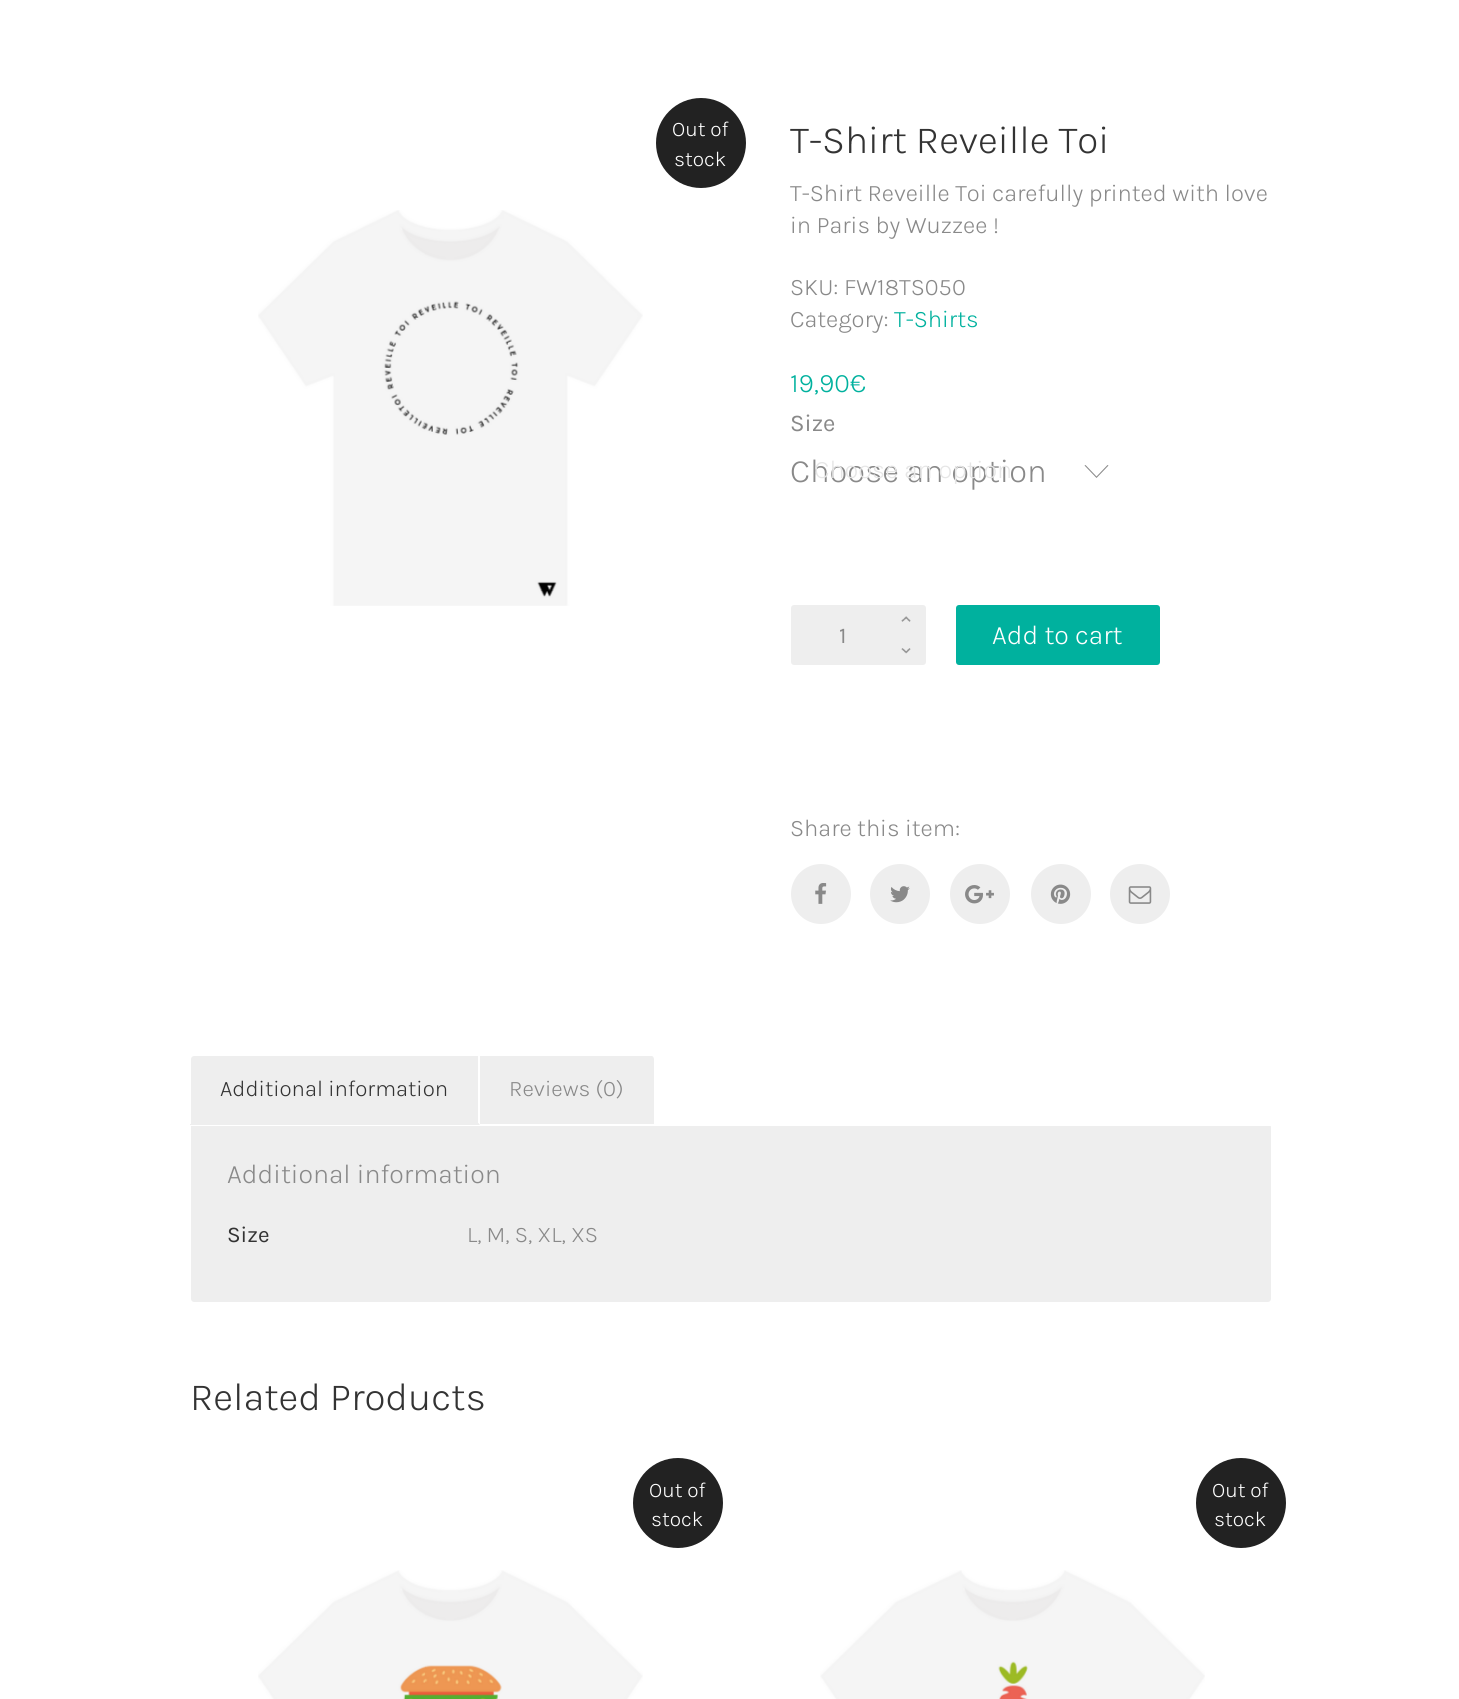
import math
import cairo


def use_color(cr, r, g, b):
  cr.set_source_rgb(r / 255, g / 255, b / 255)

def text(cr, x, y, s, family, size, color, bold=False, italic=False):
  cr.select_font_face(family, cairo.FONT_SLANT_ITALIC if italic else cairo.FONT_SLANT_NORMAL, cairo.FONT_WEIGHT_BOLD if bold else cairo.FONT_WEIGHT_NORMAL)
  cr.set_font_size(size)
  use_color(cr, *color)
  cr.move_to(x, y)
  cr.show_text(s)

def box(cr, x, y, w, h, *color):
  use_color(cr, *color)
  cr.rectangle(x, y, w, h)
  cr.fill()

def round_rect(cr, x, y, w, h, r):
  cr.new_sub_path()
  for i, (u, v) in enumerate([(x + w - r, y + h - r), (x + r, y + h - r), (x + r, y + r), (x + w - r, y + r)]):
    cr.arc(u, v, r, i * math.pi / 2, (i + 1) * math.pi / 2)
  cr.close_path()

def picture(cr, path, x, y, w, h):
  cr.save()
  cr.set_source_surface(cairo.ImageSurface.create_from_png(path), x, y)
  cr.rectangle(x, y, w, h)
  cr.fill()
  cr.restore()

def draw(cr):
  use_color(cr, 255, 255, 255)
  cr.paint()
  use_color(cr, 34, 34, 34)
  cr.arc(701, 143, 45, 0, 2 * math.pi)
  cr.fill()
  picture(cr, "img_01.png", 258, 210, 385, 396)
  use_color(cr, 137, 137, 137)
  cr.new_path()
  cr.move_to(1096.5, 478)
  cr.line_to(1084.5, 465.5)
  cr.line_to(1085.5, 465)
  cr.line_to(1096.5, 476.5)
  cr.line_to(1107.5, 465)
  cr.line_to(1108.5, 465.5)
  cr.close_path()
  cr.fill()
  use_color(cr, 238, 238, 238)
  round_rect(cr, 791, 605, 135, 60, 3)
  cr.fill()
  picture(cr, "img_02.png", 901, 616, 10, 6)
  picture(cr, "img_03.png", 901, 648, 10, 6)
  use_color(cr, 0, 177, 158)
  round_rect(cr, 956, 605, 204, 60, 3)
  cr.fill()
  use_color(cr, 238, 238, 238)
  cr.arc(821, 894, 30, 0, 2 * math.pi)
  cr.fill()
  picture(cr, "img_04.png", 815, 883, 12, 21)
  cr.arc(900, 894, 30, 0, 2 * math.pi)
  cr.fill()
  picture(cr, "img_05.png", 890, 886, 20, 17)
  cr.arc(980, 894, 30, 0, 2 * math.pi)
  cr.fill()
  picture(cr, "img_06.png", 965, 885, 29, 19)
  cr.arc(1061, 894, 30, 0, 2 * math.pi)
  cr.fill()
  picture(cr, "img_07.png", 1050, 884, 21, 20)
  cr.arc(1140, 894, 30, 0, 2 * math.pi)
  cr.fill()
  picture(cr, "img_08.png", 1128, 886, 24, 18)
  cr.new_path()
  cr.move_to(191, 1124)
  cr.line_to(1268, 1124)
  cr.curve_to(1269.5, 1124, 1271, 1125.5, 1271, 1127)
  cr.line_to(1271, 1299)
  cr.curve_to(1271, 1300.5, 1269.5, 1302, 1268, 1302)
  cr.line_to(194, 1302)
  cr.curve_to(192.5, 1302, 191, 1300.5, 191, 1299)
  cr.close_path()
  cr.fill()
  box(cr, 191, 1124, 1080, 2, 255, 255, 255)
  use_color(cr, 238, 238, 238)
  cr.new_path()
  cr.move_to(194, 1056)
  cr.line_to(479, 1056)
  cr.line_to(479, 1124)
  cr.line_to(191, 1124)
  cr.line_to(191, 1059)
  cr.curve_to(191, 1057.5, 192.5, 1056, 194, 1056)
  cr.close_path()
  cr.fill()
  use_color(cr, 255, 255, 255)
  cr.new_path()
  cr.move_to(480, 1056)
  cr.line_to(478, 1056)
  cr.line_to(478, 1123)
  cr.line_to(480, 1125)
  cr.close_path()
  cr.fill()
  use_color(cr, 238, 238, 238)
  cr.new_path()
  cr.move_to(480, 1125)
  cr.line_to(190, 1125)
  cr.line_to(190, 1124)
  cr.line_to(478, 1124)
  cr.line_to(478, 1123)
  cr.close_path()
  cr.fill()
  cr.new_path()
  cr.move_to(480, 1056)
  cr.line_to(652, 1056)
  cr.curve_to(653, 1056, 654, 1057, 654, 1059)
  cr.line_to(654, 1124)
  cr.line_to(480, 1124)
  cr.close_path()
  cr.fill()
  use_color(cr, 255, 255, 255)
  cr.new_path()
  cr.move_to(656, 1057)
  cr.curve_to(655, 1056, 653, 1056, 652, 1056)
  cr.curve_to(653, 1056, 654, 1057, 654, 1059)
  cr.line_to(654, 1124)
  cr.line_to(656, 1125)
  cr.close_path()
  cr.fill()
  use_color(cr, 34, 34, 34)
  cr.arc(678, 1503, 45, 0, 2 * math.pi)
  cr.fill()
  picture(cr, "img_09.png", 258, 1570, 385, 129)
  cr.arc(1241, 1503, 45, 0, 2 * math.pi)
  cr.fill()
  picture(cr, "img_10.png", 820, 1570, 385, 129)
  text(cr, 672, 136, "Out of", "Karla Light", 21, (255, 255, 255))
  text(cr, 674, 166, "stock", "Karla Light", 21, (255, 255, 255))
  text(cr, 790, 153, "T-Shirt Reveille Toi", "Karla Light", 39, (51, 51, 51))
  text(cr, 790, 201, "T-Shirt Reveille Toi carefully printed with love", "Karla Light", 24, (137, 137, 137))
  text(cr, 790, 233, "in Paris by Wuzzee !", "Karla Light", 24, (137, 137, 137))
  text(cr, 790, 295, "SKU: FW18TS050", "Karla Light", 24, (137, 137, 137))
  text(cr, 790, 327, "Category:", "Karla Light", 24, (137, 137, 137))
  text(cr, 894, 327, "T-Shirts", "Karla Light", 24, (0, 177, 158))
  text(cr, 790, 392, "19,90€", "Karla Light", 27, (0, 177, 158))
  text(cr, 790, 431, "Size", "Karla", 24, (137, 137, 137))
  text(cr, 790, 482, "Choose an option", "Karla Light", 33, (137, 137, 137))
  text(cr, 814, 478, "Choose an option", "Karla Light", 25.5, (230, 230, 230))
  text(cr, 839, 643, "1", "Karla", 22.5, (137, 137, 137))
  text(cr, 992, 644, "Add to cart", "Karla Light", 27, (255, 255, 255))
  text(cr, 790, 836, "Share this item:", "Karla Light", 24, (137, 137, 137))
  text(cr, 220, 1096, "Additional information", "Karla Light", 22.5, (51, 51, 51))
  text(cr, 509, 1096, "Reviews (0)", "Karla Light", 22.5, (137, 137, 137))
  text(cr, 227, 1183, "Additional information", "Karla Light", 27, (137, 137, 137))
  text(cr, 227, 1242, "Size", "Karla", 22.5, (51, 51, 51))
  text(cr, 467, 1242, "L, M, S, XL, XS", "Karla Light", 22.5, (137, 137, 137))
  text(cr, 190, 1410, "Related Products", "Karla Light", 39, (51, 51, 51))
  text(cr, 649, 1497, "Out of", "Karla Light", 21, (255, 255, 255))
  text(cr, 651, 1526, "stock", "Karla Light", 21, (255, 255, 255))
  text(cr, 1212, 1497, "Out of", "Karla Light", 21, (255, 255, 255))
  text(cr, 1214, 1526, "stock", "Karla Light", 21, (255, 255, 255))


surface = cairo.ImageSurface(cairo.FORMAT_RGB24, 1459, 1699)
cr = cairo.Context(surface)
options = cairo.FontOptions()
options.set_hint_metrics(cairo.HINT_METRICS_OFF)
options.set_hint_style(cairo.HINT_STYLE_NONE)
cr.set_font_options(options)
cr.set_miter_limit(4)
draw(cr)
surface.write_to_png("out.png")
